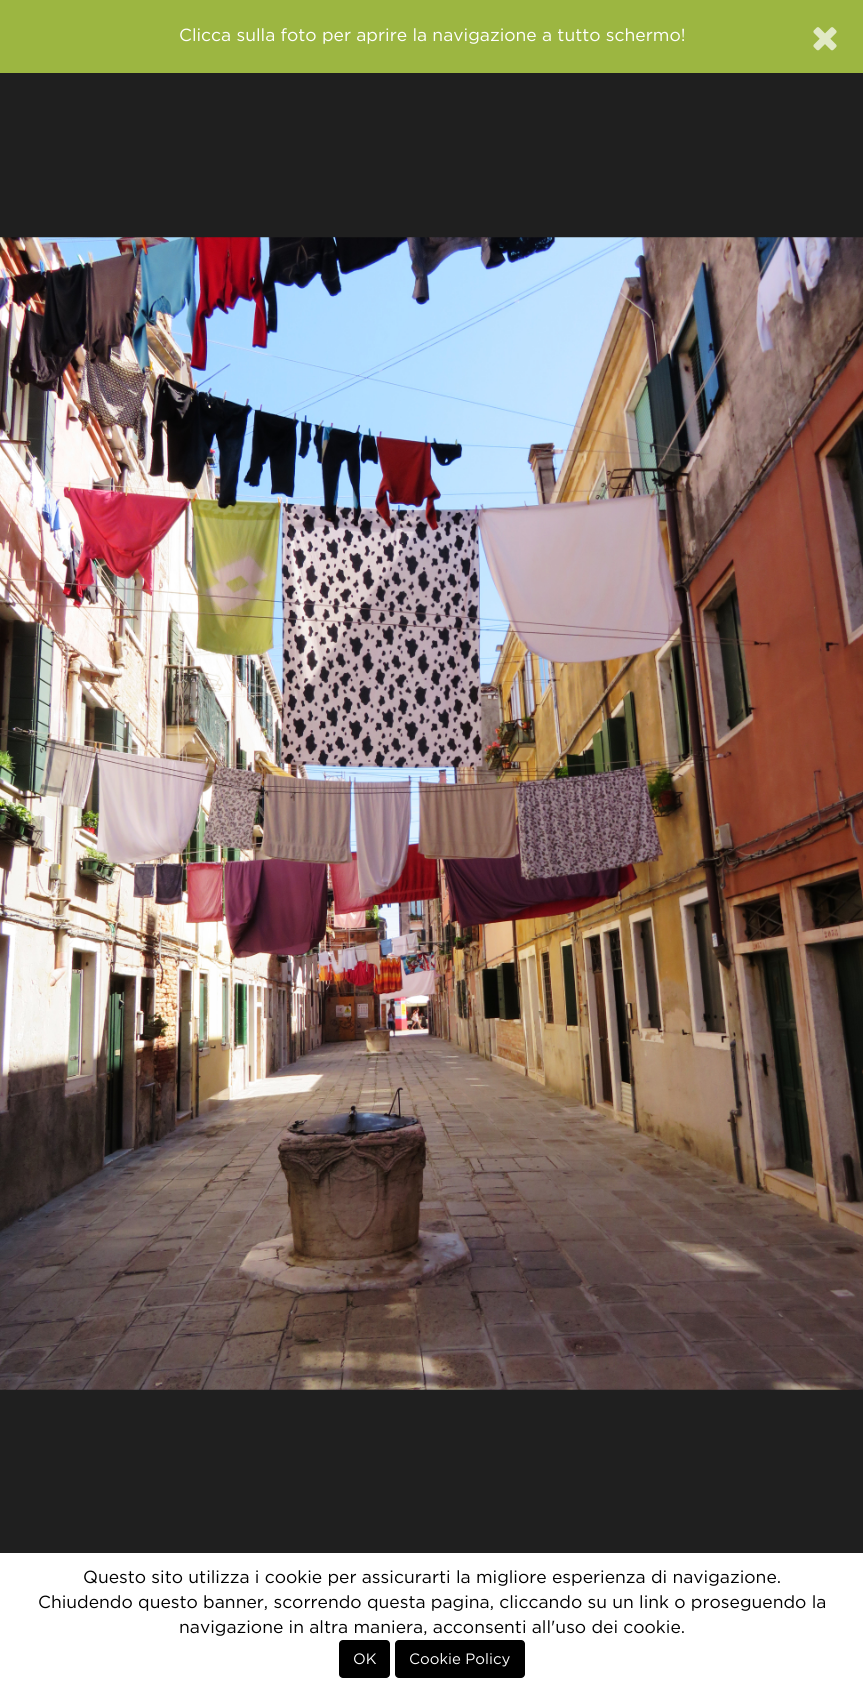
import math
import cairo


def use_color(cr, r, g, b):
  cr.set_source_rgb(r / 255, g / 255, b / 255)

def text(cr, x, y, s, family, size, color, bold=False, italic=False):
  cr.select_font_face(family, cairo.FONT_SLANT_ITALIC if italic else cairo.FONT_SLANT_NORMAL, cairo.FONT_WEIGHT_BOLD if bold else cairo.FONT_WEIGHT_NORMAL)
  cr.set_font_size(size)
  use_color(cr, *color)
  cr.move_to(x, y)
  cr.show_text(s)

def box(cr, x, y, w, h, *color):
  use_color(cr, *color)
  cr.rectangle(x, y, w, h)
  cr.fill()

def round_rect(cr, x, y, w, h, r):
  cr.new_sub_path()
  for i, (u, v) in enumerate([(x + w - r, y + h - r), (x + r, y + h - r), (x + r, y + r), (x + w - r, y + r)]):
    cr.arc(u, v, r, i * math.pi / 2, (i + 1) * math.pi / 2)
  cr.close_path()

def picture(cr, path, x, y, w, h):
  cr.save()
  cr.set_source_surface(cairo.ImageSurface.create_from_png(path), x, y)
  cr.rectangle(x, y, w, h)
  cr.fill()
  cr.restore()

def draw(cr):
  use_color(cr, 31, 31, 31)
  cr.paint()
  box(cr, 0, 0, 863, 73, 156, 182, 65)
  picture(cr, "img_01.png", 813, 27, 24, 24)
  picture(cr, "img_02.png", 0, 237, 863, 1153)
  box(cr, 0, 1553, 863, 137, 255, 255, 255)
  use_color(cr, 0, 0, 0)
  round_rect(cr, 339, 1640, 51, 38, 4)
  cr.fill()
  round_rect(cr, 395, 1640, 130, 38, 4)
  cr.fill()
  text(cr, 179, 41, "Clicca sulla foto per aprire la navigazione a tutto schermo!", "Gotham", 17.5, (255, 255, 255))
  text(cr, 83, 1583, "Questo sito utilizza i cookie per assicurarti la migliore esperienza di navigazione.", "Gotham", 17.5, (0, 0, 0))
  text(cr, 38, 1608, "Chiudendo questo banner, scorrendo questa pagina, cliccando su un link o proseguendo la", "Gotham", 17.5, (0, 0, 0))
  text(cr, 179, 1633, "navigazione in altra maniera, acconsenti all'uso dei cookie.", "Gotham", 17.5, (0, 0, 0))
  text(cr, 353, 1664, "OK", "Gotham", 15, (255, 255, 255))
  text(cr, 409, 1664, "Cookie Policy", "Gotham", 15, (255, 255, 255))


surface = cairo.ImageSurface(cairo.FORMAT_RGB24, 863, 1690)
cr = cairo.Context(surface)
options = cairo.FontOptions()
options.set_hint_metrics(cairo.HINT_METRICS_OFF)
options.set_hint_style(cairo.HINT_STYLE_NONE)
cr.set_font_options(options)
cr.set_miter_limit(4)
draw(cr)
surface.write_to_png("out.png")
